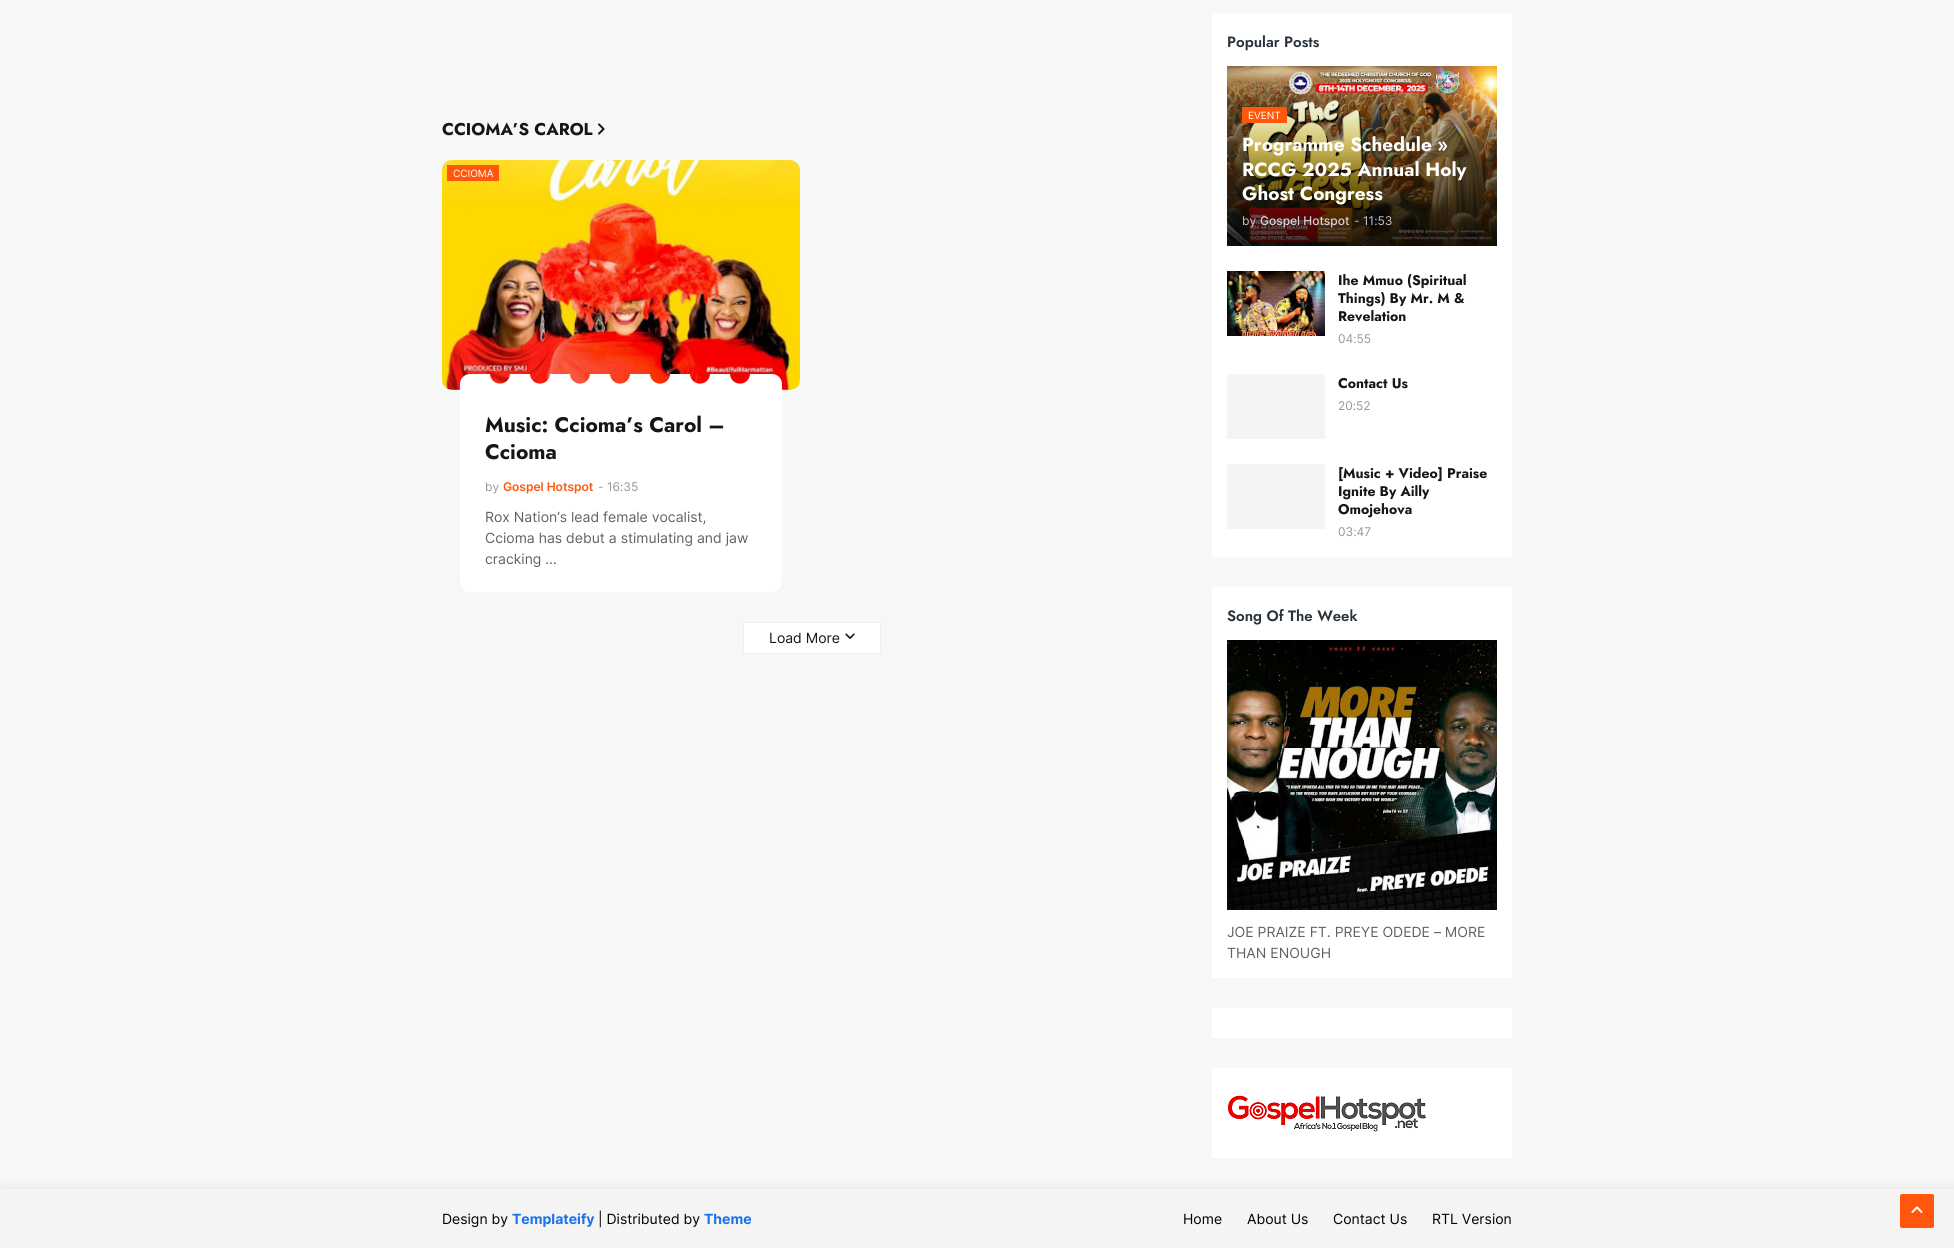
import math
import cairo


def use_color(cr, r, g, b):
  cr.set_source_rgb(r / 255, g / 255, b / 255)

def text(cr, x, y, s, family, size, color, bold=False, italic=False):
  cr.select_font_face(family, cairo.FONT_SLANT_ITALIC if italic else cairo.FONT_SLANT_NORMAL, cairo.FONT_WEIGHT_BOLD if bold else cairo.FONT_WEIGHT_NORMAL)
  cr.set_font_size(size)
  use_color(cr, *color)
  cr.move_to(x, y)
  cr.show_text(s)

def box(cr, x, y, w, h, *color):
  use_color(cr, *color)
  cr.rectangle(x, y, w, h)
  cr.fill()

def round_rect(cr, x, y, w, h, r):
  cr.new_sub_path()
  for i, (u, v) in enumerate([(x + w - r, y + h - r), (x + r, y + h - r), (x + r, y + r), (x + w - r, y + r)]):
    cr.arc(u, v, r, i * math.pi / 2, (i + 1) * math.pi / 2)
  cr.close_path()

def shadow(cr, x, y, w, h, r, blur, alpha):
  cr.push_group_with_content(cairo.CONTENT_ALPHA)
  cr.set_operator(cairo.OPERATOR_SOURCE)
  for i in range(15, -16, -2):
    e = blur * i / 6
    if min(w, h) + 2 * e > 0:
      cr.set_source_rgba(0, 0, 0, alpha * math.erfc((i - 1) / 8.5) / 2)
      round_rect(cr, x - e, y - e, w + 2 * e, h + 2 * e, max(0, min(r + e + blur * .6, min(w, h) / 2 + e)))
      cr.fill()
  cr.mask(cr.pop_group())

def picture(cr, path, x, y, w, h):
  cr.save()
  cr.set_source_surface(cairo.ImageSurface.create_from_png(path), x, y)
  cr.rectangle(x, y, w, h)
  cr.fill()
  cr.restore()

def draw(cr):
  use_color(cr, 247, 247, 247)
  cr.paint()
  picture(cr, "img_01.png", 598, 123, 7, 12)
  use_color(cr, 236, 238, 238)
  round_rect(cr, 442, 160, 358, 230, 10)
  cr.fill()
  picture(cr, "img_02.png", 442, 160, 358, 230)
  box(cr, 447, 165, 52, 16, 255, 88, 12)
  use_color(cr, 255, 255, 255)
  cr.new_path()
  cr.move_to(460, 390)
  cr.line_to(782, 390)
  cr.line_to(782, 582)
  cr.curve_to(782, 587.5, 777.5, 592, 772, 592)
  cr.line_to(470, 592)
  cr.curve_to(464.5, 592, 460, 587.5, 460, 582)
  cr.close_path()
  cr.fill()
  cr.new_path()
  cr.move_to(470, 374)
  cr.line_to(482, 374)
  cr.line_to(482, 390)
  cr.line_to(460, 390)
  cr.line_to(460, 384)
  cr.curve_to(460, 378.5, 464.5, 374, 470, 374)
  cr.close_path()
  cr.fill()
  cr.new_path()
  cr.move_to(760, 374)
  cr.line_to(772, 374)
  cr.curve_to(777.5, 374, 782, 378.5, 782, 384)
  cr.line_to(782, 390)
  cr.line_to(760, 390)
  cr.close_path()
  cr.fill()
  picture(cr, "img_03.png", 482, 374, 278, 16)
  cr.rectangle(743.5, 622.5, 137, 31)
  cr.fill_preserve()
  use_color(cr, 240, 240, 240)
  cr.set_line_width(1)
  cr.stroke()
  picture(cr, "img_04.png", 845, 633, 10, 6)
  box(cr, 1212, 13, 300, 544, 255, 255, 255)
  picture(cr, "img_05.png", 1227, 66, 270, 180)
  box(cr, 1242, 107, 45, 16, 255, 88, 12)
  picture(cr, "img_06.png", 1227, 271, 98, 65)
  box(cr, 1227, 374, 98, 65, 243, 245, 245)
  box(cr, 1227, 464, 98, 65, 243, 245, 245)
  box(cr, 1212, 587, 300, 391, 255, 255, 255)
  picture(cr, "img_07.png", 1227, 640, 270, 270)
  box(cr, 1212, 1008, 300, 30, 255, 255, 255)
  box(cr, 1212, 1068, 300, 90, 255, 255, 255)
  picture(cr, "img_08.png", 1228, 1095, 198, 37)
  use_color(cr, 0, 0, 0)
  shadow(cr, 0, 1189, 1954, 59, 0, 5, 0.1)
  box(cr, 0, 1189, 1954, 59, 244, 244, 244)
  use_color(cr, 255, 88, 12)
  round_rect(cr, 1900, 1194, 34, 34, 2)
  cr.fill()
  picture(cr, "img_09.png", 1911, 1206, 12, 7)
  text(cr, 442, 135, "CCIOMA’S CAROL", "Jost", 17, (22, 22, 24), bold=True)
  text(cr, 453, 177, "CCIOMA", "Inter", 10, (255, 255, 255))
  text(cr, 485, 432, "Music: Ccioma’s Carol –", "Jost", 21, (22, 22, 24), bold=True)
  text(cr, 485, 459, "Ccioma", "Jost", 21, (22, 22, 24), bold=True)
  text(cr, 485, 491, "by", "Inter", 12, (151, 151, 151))
  text(cr, 503, 491, "Gospel Hotspot", "Inter SemiBold", 12, (255, 88, 12))
  text(cr, 598, 491, "-", "Inter", 12, (151, 151, 151))
  text(cr, 607, 491, "16:35", "Inter", 12, (151, 151, 151))
  text(cr, 485, 522, "Rox Nation’s lead female vocalist,", "Inter", 14, (98, 98, 98))
  text(cr, 485, 543, "Ccioma has debut a stimulating and jaw", "Inter", 14, (98, 98, 98))
  text(cr, 485, 564, "cracking …", "Inter", 14, (98, 98, 98))
  text(cr, 769, 643, "Load More", "Inter", 14, (22, 22, 24))
  text(cr, 1227, 47, "Popular Posts", "Jost SemiBold", 15, (41, 49, 58))
  text(cr, 1248, 119, "EVENT", "Inter", 10, (255, 255, 255))
  text(cr, 1242, 151, "Programme Schedule »", "Jost", 19, (255, 255, 255), bold=True)
  text(cr, 1242, 176, "RCCG 2025 Annual Holy", "Jost", 19, (255, 255, 255), bold=True)
  text(cr, 1242, 200, "Ghost Congress", "Jost", 19, (255, 255, 255), bold=True)
  text(cr, 1242, 225, "by", "Inter", 12, (197, 197, 202))
  text(cr, 1260, 225, "Gospel Hotspot", "Inter Medium", 12, (213, 213, 218))
  text(cr, 1354, 225, "-", "Inter", 12, (197, 197, 202))
  text(cr, 1363, 225, "11:53", "Inter", 12, (197, 197, 202))
  text(cr, 1338, 285, "Ihe Mmuo (Spiritual", "Jost", 14, (22, 22, 24), bold=True)
  text(cr, 1338, 303, "Things) By Mr. M &", "Jost", 14, (22, 22, 24), bold=True)
  text(cr, 1338, 321, "Revelation", "Jost", 14, (22, 22, 24), bold=True)
  text(cr, 1338, 343, "04:55", "Inter", 12, (151, 151, 151))
  text(cr, 1338, 388, "Contact Us", "Jost", 14, (22, 22, 24), bold=True)
  text(cr, 1338, 410, "20:52", "Inter", 12, (151, 151, 151))
  text(cr, 1338, 478, "[Music + Video] Praise", "Jost", 14, (22, 22, 24), bold=True)
  text(cr, 1338, 496, "Ignite By Ailly", "Jost", 14, (22, 22, 24), bold=True)
  text(cr, 1338, 514, "Omojehova", "Jost", 14, (22, 22, 24), bold=True)
  text(cr, 1338, 536, "03:47", "Inter", 12, (151, 151, 151))
  text(cr, 1227, 621, "Song Of The Week", "Jost SemiBold", 15, (41, 49, 58))
  text(cr, 1227, 937, "JOE PRAIZE FT. PREYE ODEDE – MORE", "Inter", 14, (98, 98, 98))
  text(cr, 1227, 958, "THAN ENOUGH", "Inter", 14, (98, 98, 98))
  text(cr, 442, 1224, "Design by", "Inter", 14, (0, 0, 0))
  text(cr, 512, 1224, "Templateify", "Inter", 14, (26, 115, 232), bold=True)
  text(cr, 598, 1224, "| Distributed by", "Inter", 14, (0, 0, 0))
  text(cr, 704, 1224, "Theme", "Inter", 14, (26, 115, 232), bold=True)
  text(cr, 1183, 1224, "Home", "Inter", 14, (0, 0, 0))
  text(cr, 1247, 1224, "About Us", "Inter", 14, (0, 0, 0))
  text(cr, 1333, 1224, "Contact Us", "Inter", 14, (0, 0, 0))
  text(cr, 1432, 1224, "RTL Version", "Inter", 14, (0, 0, 0))


surface = cairo.ImageSurface(cairo.FORMAT_RGB24, 1954, 1248)
cr = cairo.Context(surface)
options = cairo.FontOptions()
options.set_hint_metrics(cairo.HINT_METRICS_OFF)
options.set_hint_style(cairo.HINT_STYLE_NONE)
cr.set_font_options(options)
cr.set_miter_limit(4)
draw(cr)
surface.write_to_png("out.png")
